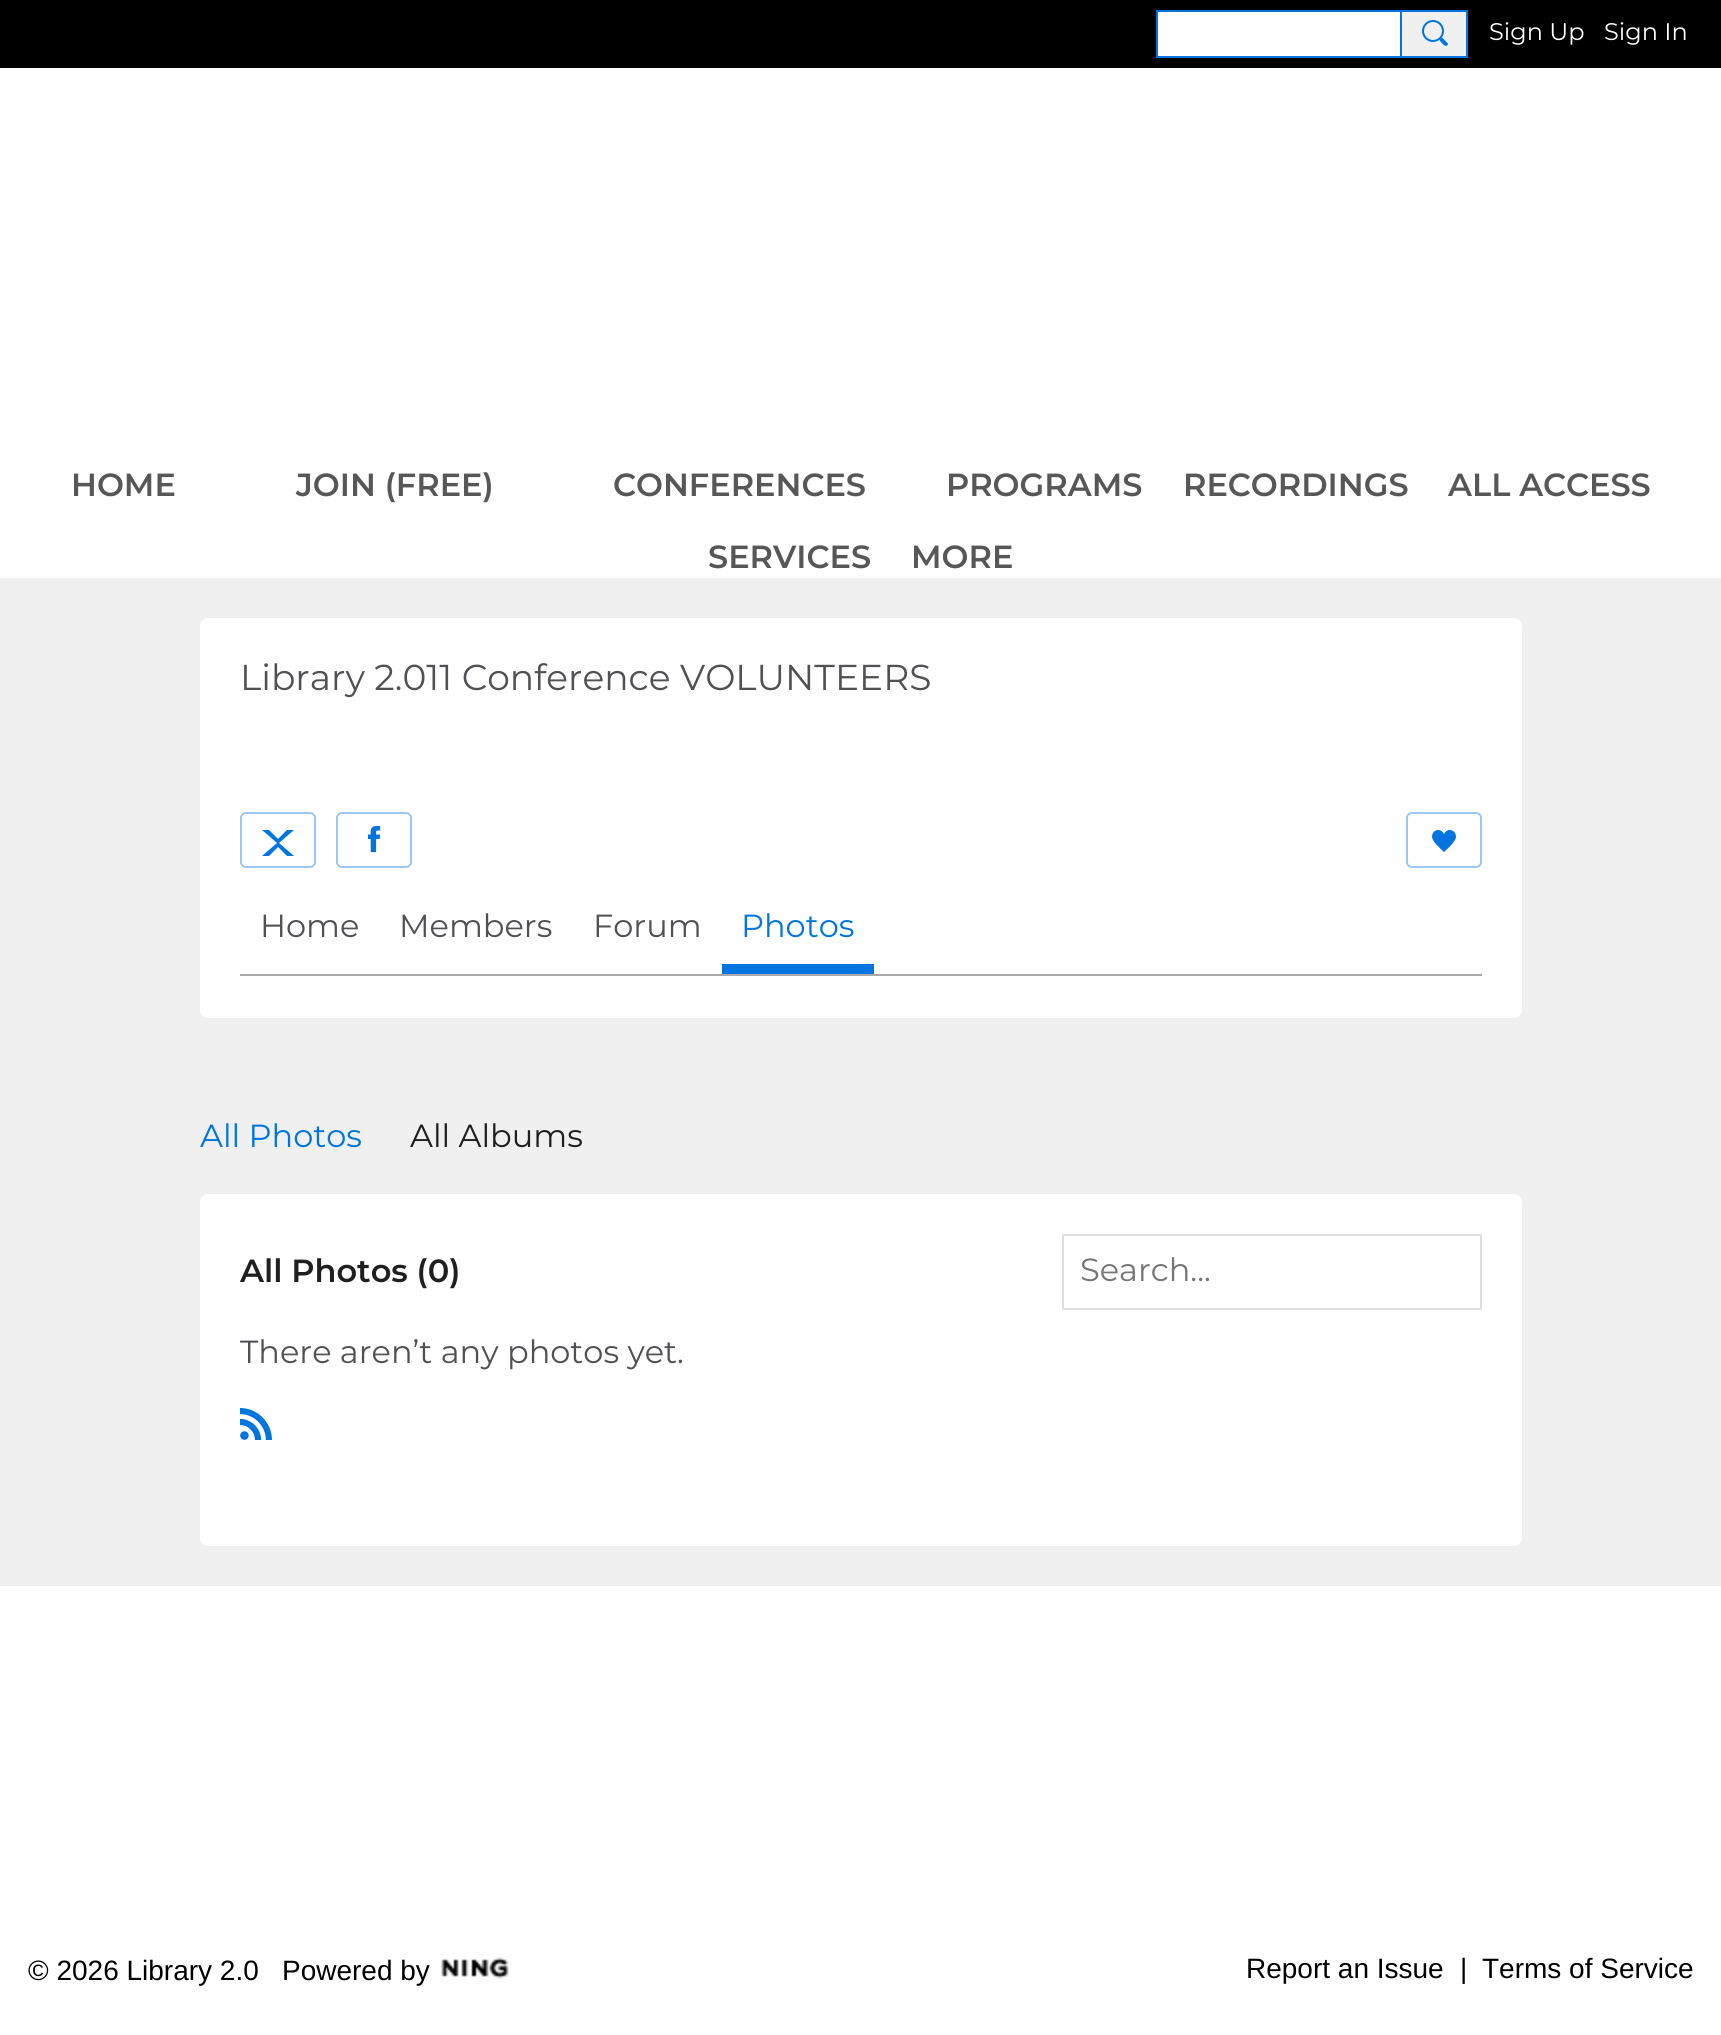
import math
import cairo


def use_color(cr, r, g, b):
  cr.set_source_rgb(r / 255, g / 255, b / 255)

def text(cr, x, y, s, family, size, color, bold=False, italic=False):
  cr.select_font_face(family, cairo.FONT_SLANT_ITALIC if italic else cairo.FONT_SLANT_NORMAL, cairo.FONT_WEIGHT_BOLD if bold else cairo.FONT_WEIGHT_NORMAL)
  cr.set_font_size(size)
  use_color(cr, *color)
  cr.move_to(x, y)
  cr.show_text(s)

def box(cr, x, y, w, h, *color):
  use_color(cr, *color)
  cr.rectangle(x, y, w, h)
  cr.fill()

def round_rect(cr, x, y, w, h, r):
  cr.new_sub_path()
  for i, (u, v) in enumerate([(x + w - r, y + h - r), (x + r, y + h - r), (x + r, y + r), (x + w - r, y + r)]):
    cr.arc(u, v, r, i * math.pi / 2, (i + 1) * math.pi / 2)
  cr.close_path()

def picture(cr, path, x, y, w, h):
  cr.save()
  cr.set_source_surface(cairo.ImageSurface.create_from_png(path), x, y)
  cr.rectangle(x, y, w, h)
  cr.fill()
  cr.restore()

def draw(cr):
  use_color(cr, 255, 255, 255)
  cr.paint()
  box(cr, 0, 0, 1721, 68, 0, 0, 0)
  use_color(cr, 255, 255, 255)
  cr.rectangle(1157, 11, 244, 46)
  cr.fill_preserve()
  use_color(cr, 0, 117, 223)
  cr.stroke()
  cr.set_source_rgba(1, 1, 1, 0.94)
  cr.rectangle(1401, 11, 66, 46)
  cr.fill_preserve()
  use_color(cr, 0, 117, 223)
  cr.stroke()
  cr.arc(1433, 31, 10, 0, 2 * math.pi)
  cr.stroke()
  cr.new_path()
  cr.move_to(1443, 38.5)
  cr.line_to(1447.5, 43)
  cr.curve_to(1448, 43.5, 1448, 44.5, 1447.5, 45)
  cr.curve_to(1445.5, 48, 1441.5, 42.5, 1440.5, 41.5)
  cr.curve_to(1438.5, 39.5, 1441.5, 36.5, 1443, 38.5)
  cr.close_path()
  cr.fill()
  box(cr, 0, 578, 1721, 1008, 240, 240, 240)
  box(cr, 0, 576, 1721, 2, 251, 251, 251)
  use_color(cr, 255, 255, 255)
  round_rect(cr, 200, 618, 1322, 400, 8)
  cr.fill()
  round_rect(cr, 241, 813, 74, 54, 5)
  use_color(cr, 153, 200, 242)
  cr.stroke()
  picture(cr, "img_01.png", 262, 830, 32, 26)
  round_rect(cr, 337, 813, 74, 54, 5)
  cr.stroke()
  picture(cr, "img_02.png", 368, 826, 13, 27)
  round_rect(cr, 1407, 813, 74, 54, 5)
  cr.stroke()
  picture(cr, "img_03.png", 1432, 830, 24, 22)
  box(cr, 240, 974, 1242, 2, 170, 170, 170)
  box(cr, 722, 964, 152, 10, 0, 117, 223)
  use_color(cr, 255, 255, 255)
  round_rect(cr, 200, 1194, 1322, 352, 8)
  cr.fill()
  cr.rectangle(1063, 1235, 418, 74)
  use_color(cr, 221, 221, 221)
  cr.stroke()
  picture(cr, "img_04.png", 240, 1408, 32, 32)
  picture(cr, "img_05.png", 441, 1957, 68, 22)
  text(cr, 1489, 40, "Sign Up", "Montserrat Thin", 24, (255, 255, 255))
  text(cr, 1604, 40, "Sign In", "Montserrat Thin", 24, (255, 255, 255))
  text(cr, 71, 496, "HOME", "Montserrat SemiBold", 32, (87, 87, 87))
  text(cr, 296, 496, "JOIN (FREE)", "Montserrat SemiBold", 32, (87, 87, 87))
  text(cr, 613, 496, "CONFERENCES", "Montserrat SemiBold", 32, (87, 87, 87))
  text(cr, 946, 496, "PROGRAMS", "Montserrat SemiBold", 32, (87, 87, 87))
  text(cr, 1183, 496, "RECORDINGS", "Montserrat SemiBold", 32, (87, 87, 87))
  text(cr, 1448, 496, "ALL ACCESS", "Montserrat SemiBold", 32, (87, 87, 87))
  text(cr, 708, 568, "SERVICES", "Montserrat SemiBold", 32, (87, 87, 87))
  text(cr, 911, 568, "MORE", "Montserrat SemiBold", 32, (87, 87, 87))
  text(cr, 240, 690, "Library 2.011 Conference VOLUNTEERS", "Montserrat Thin", 36, (80, 80, 85))
  text(cr, 260, 937, "Home", "Montserrat Thin", 32, (80, 80, 85))
  text(cr, 399, 937, "Members", "Montserrat Thin", 32, (80, 80, 85))
  text(cr, 593, 937, "Forum", "Montserrat Thin", 32, (80, 80, 85))
  text(cr, 741, 937, "Photos", "Montserrat Thin", 32, (0, 117, 223))
  text(cr, 200, 1147, "All Photos", "Montserrat Thin", 32, (0, 117, 223))
  text(cr, 410, 1147, "All Albums", "Montserrat Thin", 32, (31, 31, 31))
  text(cr, 240, 1282, "All Photos (0)", "Montserrat SemiBold", 32, (31, 31, 31))
  text(cr, 1080, 1281, "Search...", "Montserrat Thin", 32, (117, 117, 117))
  text(cr, 240, 1363, "There aren’t any photos yet.", "Montserrat Thin", 32, (80, 80, 85))
  text(cr, 28, 1980, "© 2026 Library 2.0", "Liberation Sans", 28, (0, 0, 0))
  text(cr, 282, 1980, "Powered by", "Liberation Sans", 28, (0, 0, 0))
  text(cr, 1246, 1978, "Report an Issue", "Liberation Sans", 28, (0, 0, 0))
  text(cr, 1460, 1978, "|", "Liberation Sans", 28, (0, 0, 0))
  text(cr, 1482, 1978, "Terms of Service", "Liberation Sans", 28, (0, 0, 0))


surface = cairo.ImageSurface(cairo.FORMAT_RGB24, 1721, 2035)
cr = cairo.Context(surface)
options = cairo.FontOptions()
options.set_hint_metrics(cairo.HINT_METRICS_OFF)
options.set_hint_style(cairo.HINT_STYLE_NONE)
cr.set_font_options(options)
cr.set_miter_limit(4)
draw(cr)
surface.write_to_png("out.png")
